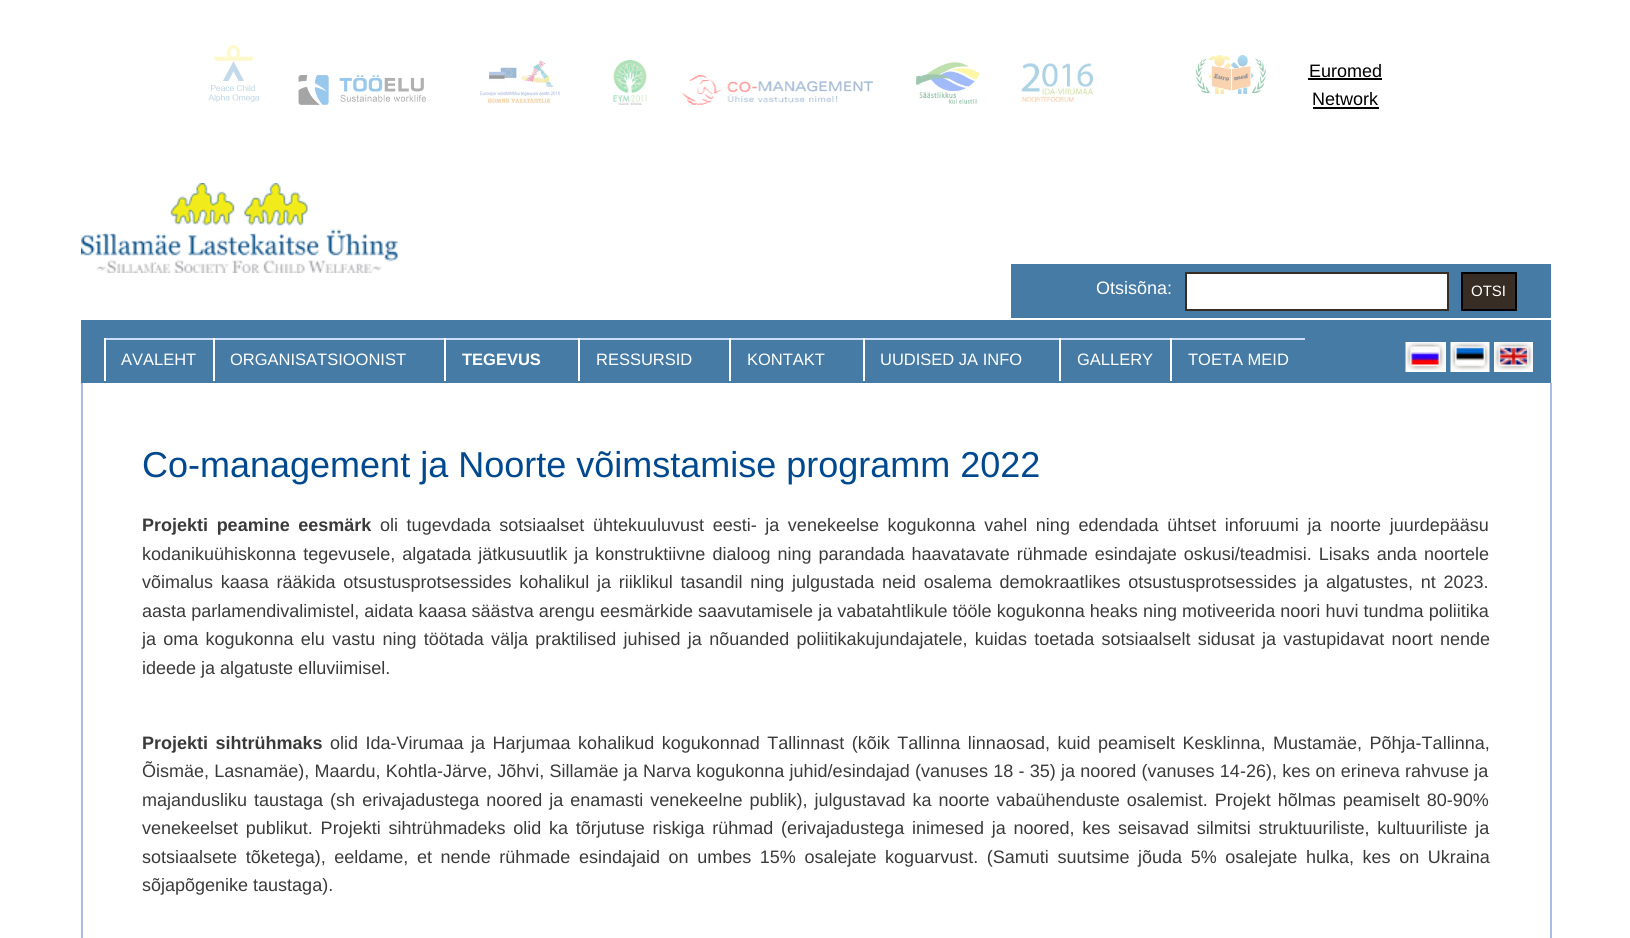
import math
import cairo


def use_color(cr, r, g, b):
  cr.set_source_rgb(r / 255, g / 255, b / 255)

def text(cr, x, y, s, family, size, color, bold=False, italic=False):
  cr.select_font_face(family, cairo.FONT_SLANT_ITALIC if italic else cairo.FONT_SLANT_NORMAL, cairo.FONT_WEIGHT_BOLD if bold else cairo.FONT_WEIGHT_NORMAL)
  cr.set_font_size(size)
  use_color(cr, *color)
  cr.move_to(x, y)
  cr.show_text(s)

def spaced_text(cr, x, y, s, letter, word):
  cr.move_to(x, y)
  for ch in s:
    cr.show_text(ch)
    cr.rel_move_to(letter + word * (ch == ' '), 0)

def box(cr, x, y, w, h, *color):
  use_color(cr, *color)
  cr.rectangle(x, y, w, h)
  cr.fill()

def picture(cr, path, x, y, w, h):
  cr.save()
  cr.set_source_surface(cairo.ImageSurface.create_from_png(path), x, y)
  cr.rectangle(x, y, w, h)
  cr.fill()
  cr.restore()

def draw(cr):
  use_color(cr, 255, 255, 255)
  cr.paint()
  picture(cr, "img_01.png", 208, 45, 52, 57)
  picture(cr, "img_02.png", 298, 75, 128, 30)
  picture(cr, "img_03.png", 480, 60, 80, 43)
  picture(cr, "img_04.png", 613, 60, 34, 45)
  picture(cr, "img_05.png", 682, 75, 191, 30)
  picture(cr, "img_06.png", 916, 62, 64, 42)
  picture(cr, "img_07.png", 1021, 63, 73, 39)
  picture(cr, "img_08.png", 1195, 54, 71, 40)
  box(cr, 1308, 78, 74, 2, 0, 0, 0)
  box(cr, 1313, 107, 66, 2, 0, 0, 0)
  picture(cr, "img_09.png", 81, 183, 317, 90)
  box(cr, 1011, 264, 540, 54, 70, 123, 165)
  use_color(cr, 255, 255, 255)
  cr.rectangle(1186, 273, 262, 37)
  cr.fill_preserve()
  use_color(cr, 55, 45, 36)
  cr.stroke()
  cr.rectangle(1462, 273, 54, 37)
  cr.fill_preserve()
  use_color(cr, 0, 0, 0)
  cr.stroke()
  box(cr, 81, 320, 1470, 63, 70, 123, 165)
  box(cr, 104, 338, 1201, 2, 207, 222, 255)
  box(cr, 104, 338, 2, 43, 255, 255, 255)
  box(cr, 213, 338, 2, 43, 255, 255, 255)
  box(cr, 444, 338, 2, 43, 255, 255, 255)
  box(cr, 578, 338, 2, 43, 255, 255, 255)
  box(cr, 729, 338, 2, 43, 255, 255, 255)
  box(cr, 863, 338, 2, 43, 255, 255, 255)
  box(cr, 1059, 338, 2, 43, 255, 255, 255)
  box(cr, 1170, 338, 2, 43, 255, 255, 255)
  picture(cr, "img_10.png", 1405, 342, 41, 30)
  picture(cr, "img_11.png", 1450, 342, 40, 30)
  picture(cr, "img_12.png", 1494, 342, 39, 30)
  box(cr, 1550, 383, 2, 555, 170, 189, 230)
  box(cr, 81, 383, 2, 555, 170, 189, 230)
  text(cr, 1309, 77, "Euromed", "Liberation Sans", 18, (0, 0, 0))
  text(cr, 1312, 105, "Network", "Liberation Sans", 18, (0, 0, 0))
  text(cr, 1096, 294, "Otsisõna:", "Liberation Sans", 18, (255, 255, 255))
  text(cr, 1471, 296, "OTSI", "Liberation Sans", 15, (255, 255, 255))
  text(cr, 121, 365, "AVALEHT", "Liberation Sans", 16.5, (255, 255, 255))
  text(cr, 230, 365, "ORGANISATSIOONIST", "Liberation Sans", 16.5, (255, 255, 255))
  text(cr, 462, 365, "TEGEVUS", "Liberation Sans", 16.5, (255, 255, 255), bold=True)
  text(cr, 596, 365, "RESSURSID", "Liberation Sans", 16.5, (255, 255, 255))
  text(cr, 747, 365, "KONTAKT", "Liberation Sans", 16.5, (255, 255, 255))
  text(cr, 880, 365, "UUDISED JA INFO", "Liberation Sans", 16.5, (255, 255, 255))
  text(cr, 1077, 365, "GALLERY", "Liberation Sans", 16.5, (255, 255, 255))
  text(cr, 1188, 365, "TOETA MEID", "Liberation Sans", 16.5, (255, 255, 255))
  text(cr, 142, 477, "Co-management ja Noorte võimstamise programm 2022", "Liberation Sans", 36, (0, 73, 142))
  cr.select_font_face("Liberation Sans", cairo.FONT_SLANT_NORMAL, cairo.FONT_WEIGHT_BOLD)
  cr.set_font_size(18)
  use_color(cr, 58, 58, 58)
  spaced_text(cr, 142, 531, "Projekti peamine eesmärk", 0, 3.6)
  cr.select_font_face("Liberation Sans")
  spaced_text(cr, 380, 531, "oli tugevdada sotsiaalset ühtekuuluvust eesti- ja venekeelse kogukonna vahel ning edendada ühtset inforuumi ja noorte juurdepääsu", 0, 3.6)
  spaced_text(cr, 142, 560, "kodanikuühiskonna tegevusele, algatada jätkusuutlik ja konstruktiivne dialoog ning parandada haavatavate rühmade esindajate oskusi/teadmisi. Lisaks anda noortele", 0, 2)
  spaced_text(cr, 142, 588, "võimalus kaasa rääkida otsustusprotsessides kohalikul ja riiklikul tasandil ning julgustada neid osalema demokraatlikes otsustusprotsessides ja algatustes, nt 2023.", 0, 2.75)
  spaced_text(cr, 142, 617, "aasta parlamendivalimistel, aidata kaasa säästva arengu eesmärkide saavutamisele ja vabatahtlikule tööle kogukonna heaks ning motiveerida noori huvi tundma poliitika", 0, 0.1)
  spaced_text(cr, 142, 645, "ja oma kogukonna elu vastu ning töötada välja praktilised juhised ja nõuanded poliitikakujundajatele, kuidas toetada sotsiaalselt sidusat ja vastupidavat noort nende", 0, 2.25)
  text(cr, 142, 674, "ideede ja algatuste elluviimisel.", "Liberation Sans", 18, (58, 58, 58))
  cr.select_font_face("Liberation Sans", cairo.FONT_SLANT_NORMAL, cairo.FONT_WEIGHT_BOLD)
  spaced_text(cr, 142, 749, "Projekti sihtrühmaks", 0, 2.5)
  cr.select_font_face("Liberation Sans")
  spaced_text(cr, 330, 749, "olid Ida-Virumaa ja Harjumaa kohalikud kogukonnad Tallinnast (kõik Tallinna linnaosad, kuid peamiselt Kesklinna, Mustamäe, Põhja-Tallinna,", 0, 2.5)
  spaced_text(cr, 142, 777, "Õismäe, Lasnamäe), Maardu, Kohtla-Järve, Jõhvi, Sillamäe ja Narva kogukonna juhid/esindajad (vanuses 18 - 35) ja noored (vanuses 14-26), kes on erineva rahvuse ja", 0, 0.25)
  spaced_text(cr, 142, 806, "majandusliku taustaga (sh erivajadustega noored ja enamasti venekeelne publik), julgustavad ka noorte vabaühenduste osalemist. Projekt hõlmas peamiselt 80-90%", 0, 2)
  spaced_text(cr, 142, 834, "venekeelset publikut. Projekti sihtrühmadeks olid ka tõrjutuse riskiga rühmad (erivajadustega inimesed ja noored, kes seisavad silmitsi struktuuriliste, kultuuriliste ja", 0, 2.75)
  spaced_text(cr, 142, 863, "sotsiaalsete tõketega), eeldame, et nende rühmade esindajaid on umbes 15% osalejate koguarvust. (Samuti suutsime jõuda 5% osalejate hulka, kes on Ukraina", 0, 3.6)
  text(cr, 142, 891, "sõjapõgenike taustaga).", "Liberation Sans", 18, (58, 58, 58))


surface = cairo.ImageSurface(cairo.FORMAT_RGB24, 1630, 938)
cr = cairo.Context(surface)
options = cairo.FontOptions()
options.set_hint_metrics(cairo.HINT_METRICS_OFF)
options.set_hint_style(cairo.HINT_STYLE_NONE)
cr.set_font_options(options)
cr.set_miter_limit(4)
draw(cr)
surface.write_to_png("out.png")
